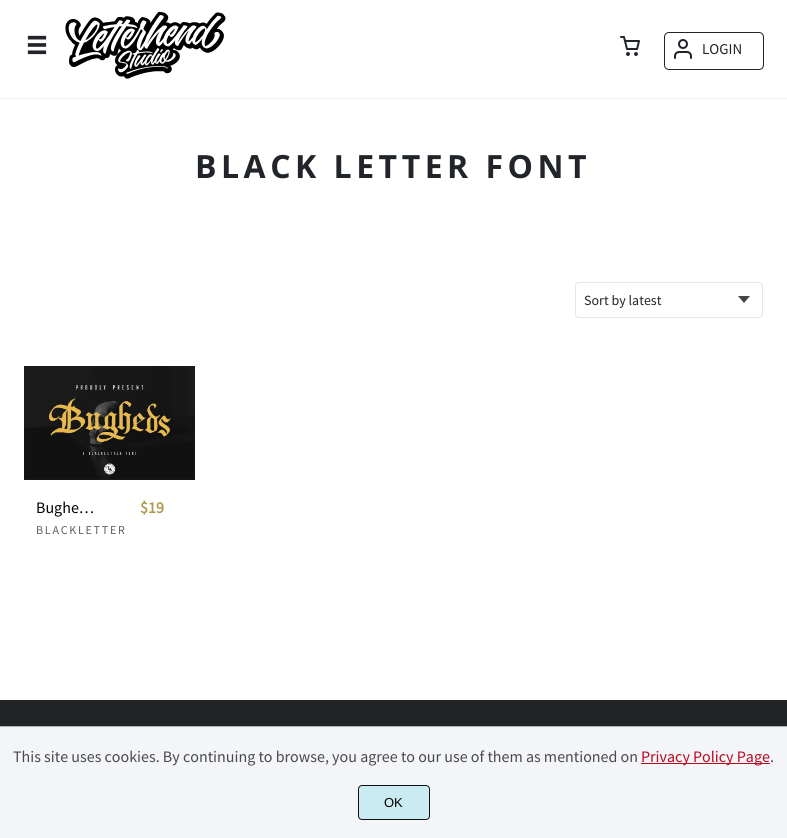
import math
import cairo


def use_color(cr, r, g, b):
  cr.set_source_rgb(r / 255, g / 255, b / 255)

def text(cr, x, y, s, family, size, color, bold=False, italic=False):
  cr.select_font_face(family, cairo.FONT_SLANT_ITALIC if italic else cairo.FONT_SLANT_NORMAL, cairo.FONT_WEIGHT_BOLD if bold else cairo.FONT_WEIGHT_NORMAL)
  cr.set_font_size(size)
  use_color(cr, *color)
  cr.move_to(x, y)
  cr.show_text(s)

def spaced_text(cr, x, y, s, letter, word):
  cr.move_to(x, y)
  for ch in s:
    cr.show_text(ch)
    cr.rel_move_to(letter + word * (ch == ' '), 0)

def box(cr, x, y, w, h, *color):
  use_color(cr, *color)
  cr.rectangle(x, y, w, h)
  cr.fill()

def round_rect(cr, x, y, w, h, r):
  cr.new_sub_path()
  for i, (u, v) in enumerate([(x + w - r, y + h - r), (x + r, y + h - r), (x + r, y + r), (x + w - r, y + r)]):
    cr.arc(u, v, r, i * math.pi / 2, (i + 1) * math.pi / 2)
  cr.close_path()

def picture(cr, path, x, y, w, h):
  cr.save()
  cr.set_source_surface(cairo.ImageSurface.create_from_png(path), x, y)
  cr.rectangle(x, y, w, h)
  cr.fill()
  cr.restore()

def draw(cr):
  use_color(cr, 255, 255, 255)
  cr.paint()
  box(cr, 0, 98, 787, 1, 242, 242, 242)
  picture(cr, "img_01.png", 27, 35, 20, 20)
  picture(cr, "img_02.png", 65, 11, 161, 68)
  picture(cr, "img_03.png", 620, 36, 20, 20)
  round_rect(cr, 664.5, 32.5, 99, 37, 4.5)
  use_color(cr, 33, 37, 41)
  cr.set_line_width(1)
  cr.stroke()
  picture(cr, "img_04.png", 674, 39, 18, 20)
  use_color(cr, 68, 68, 68)
  cr.set_fill_rule(cairo.FILL_RULE_EVEN_ODD)
  cr.new_path()
  cr.move_to(744, 303)
  cr.line_to(738, 296)
  cr.line_to(750, 296)
  cr.close_path()
  cr.fill()
  round_rect(cr, 575.5, 282.5, 187, 35, 3.5)
  use_color(cr, 230, 230, 230)
  cr.stroke()
  picture(cr, "img_05.png", 24, 366, 171, 114)
  box(cr, 0, 700, 787, 26, 33, 35, 36)
  box(cr, 0, 727, 787, 111, 243, 245, 249)
  box(cr, 0, 726, 787, 1, 175, 177, 179)
  box(cr, 641, 763, 129, 1, 187, 10, 30)
  use_color(cr, 202, 235, 242)
  round_rect(cr, 358.5, 785.5, 71, 34, 3.5)
  cr.fill_preserve()
  use_color(cr, 17, 17, 17)
  cr.stroke()
  text(cr, 702, 54, "LOGIN", "Source Sans Pro", 15, (33, 37, 41))
  cr.select_font_face("Open Sans", cairo.FONT_SLANT_NORMAL, cairo.FONT_WEIGHT_BOLD)
  cr.set_font_size(32)
  spaced_text(cr, 195, 178, "BLACK LETTER FONT", 4.5, 0)
  text(cr, 584, 305, "Sort by latest", "Source Sans Pro", 14, (33, 37, 41))
  text(cr, 36, 513, "Bughe…", "Source Sans Pro", 16, (1, 1, 1))
  cr.set_font_size(12)
  use_color(cr, 97, 95, 92)
  spaced_text(cr, 36, 534, "BLACKLETTER", 1.75, 0)
  text(cr, 140, 513, "$19", "Source Sans Pro", 16, (174, 150, 70), bold=True)
  text(cr, 13, 762, "This site uses cookies. By continuing to browse, you agree to our use of them as mentioned on", "Source Sans Pro", 16, (74, 74, 74))
  text(cr, 641, 762, "Privacy Policy Page", "Source Sans Pro", 16, (187, 10, 30))
  text(cr, 770, 762, ".", "Source Sans Pro", 16, (74, 74, 74))
  text(cr, 384, 807, "OK", "Liberation Sans", 13, (1, 1, 1))


surface = cairo.ImageSurface(cairo.FORMAT_RGB24, 787, 838)
cr = cairo.Context(surface)
options = cairo.FontOptions()
options.set_hint_metrics(cairo.HINT_METRICS_OFF)
options.set_hint_style(cairo.HINT_STYLE_NONE)
cr.set_font_options(options)
cr.set_miter_limit(4)
draw(cr)
surface.write_to_png("out.png")
